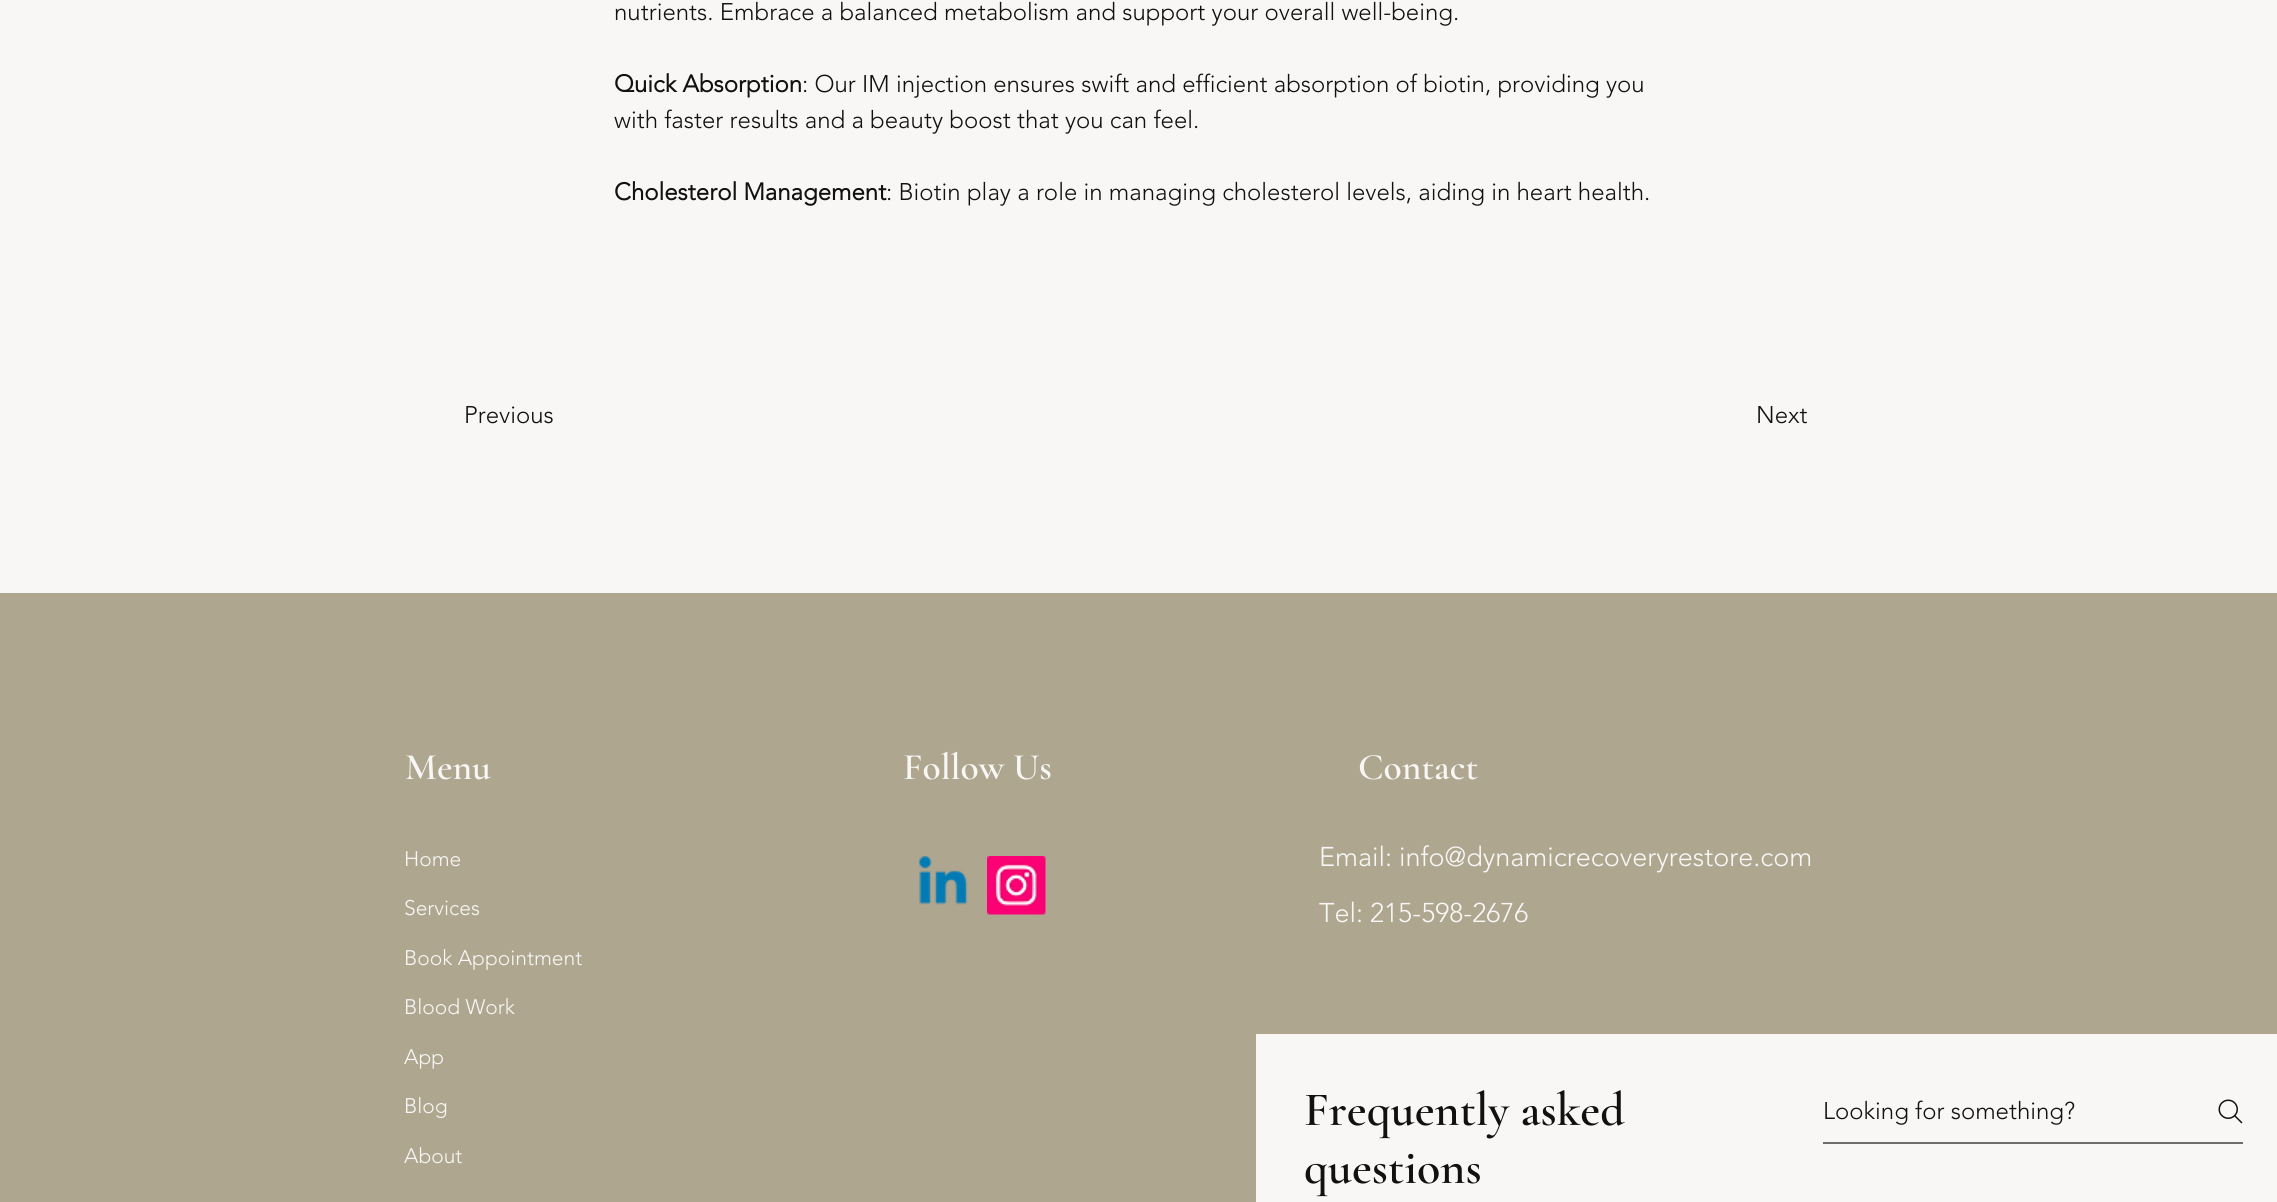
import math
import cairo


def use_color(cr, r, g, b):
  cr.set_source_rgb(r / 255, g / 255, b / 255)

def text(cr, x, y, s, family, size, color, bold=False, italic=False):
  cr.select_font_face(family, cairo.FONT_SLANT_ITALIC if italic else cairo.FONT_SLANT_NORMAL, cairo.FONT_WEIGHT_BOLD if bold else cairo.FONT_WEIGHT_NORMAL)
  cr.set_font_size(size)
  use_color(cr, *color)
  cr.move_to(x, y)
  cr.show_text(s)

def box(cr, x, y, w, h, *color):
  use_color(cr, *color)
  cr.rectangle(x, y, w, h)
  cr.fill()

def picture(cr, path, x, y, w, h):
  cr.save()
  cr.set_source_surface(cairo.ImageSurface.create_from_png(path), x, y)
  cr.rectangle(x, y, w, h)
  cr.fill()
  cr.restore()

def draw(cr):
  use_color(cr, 248, 247, 245)
  cr.paint()
  box(cr, 0, 593, 2277, 609, 175, 166, 144)
  picture(cr, "img_01.png", 918, 856, 50, 49)
  picture(cr, "img_02.png", 987, 856, 59, 59)
  box(cr, 1256, 1034, 1021, 168, 248, 247, 245)
  box(cr, 1823, 1142, 420, 2, 109, 109, 108)
  picture(cr, "img_03.png", 2218, 1099, 25, 25)
  text(cr, 614, 20, "nutrients. Embrace a balanced metabolism and support your overall well-being.", "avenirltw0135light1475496 Light", 24, (17, 17, 17))
  text(cr, 614, 92, "Quick Absorption", "avenirltw0135light1475496", 24, (17, 17, 17), bold=True)
  text(cr, 802, 92, ": Our IM injection ensures swift and efficient absorption of biotin, providing you", "avenirltw0135light1475496 Light", 24, (17, 17, 17))
  text(cr, 614, 128, "with faster results and a beauty boost that you can feel.", "avenirltw0135light1475496 Light", 24, (17, 17, 17))
  text(cr, 614, 200, "Cholesterol Management", "avenirltw0135light1475496", 24, (17, 17, 17), bold=True)
  text(cr, 886, 200, ": Biotin play a role in managing cholesterol levels, aiding in heart health.", "avenirltw0135light1475496 Light", 24, (17, 17, 17))
  text(cr, 464, 423, "Previous", "avenirltw0135light1475496 Light", 24, (17, 17, 17))
  text(cr, 1756, 423, "Next", "avenirltw0135light1475496 Light", 24, (17, 17, 17))
  text(cr, 405, 779, "Menu", "Cormorant Garamond SemiBold", 37.5, (248, 247, 245))
  text(cr, 903, 779, "Follow Us", "Cormorant Garamond SemiBold", 37.5, (248, 247, 245))
  text(cr, 1358, 779, "Contact", "Cormorant Garamond SemiBold", 37.5, (248, 247, 245))
  text(cr, 404, 866, "Home", "avenirltw0135light1475496 Light", 21, (248, 247, 245))
  text(cr, 404, 915, "Services", "avenirltw0135light1475496 Light", 21, (248, 247, 245))
  text(cr, 404, 965, "Book Appointment", "avenirltw0135light1475496 Light", 21, (248, 247, 245))
  text(cr, 404, 1014, "Blood Work", "avenirltw0135light1475496 Light", 21, (248, 247, 245))
  text(cr, 404, 1064, "App", "avenirltw0135light1475496 Light", 21, (248, 247, 245))
  text(cr, 404, 1113, "Blog", "avenirltw0135light1475496 Light", 21, (248, 247, 245))
  text(cr, 404, 1163, "About", "avenirltw0135light1475496 Light", 21, (248, 247, 245))
  text(cr, 1319, 866, "Email: info@dynamicrecoveryrestore.com", "avenirltw0135light1475496 Light", 27, (248, 247, 245))
  text(cr, 1319, 922, "Tel: 215-598-2676", "avenirltw0135light1475496 Light", 27, (248, 247, 245))
  text(cr, 1304, 1125, "Frequently asked", "Cormorant Garamond SemiBold", 48, (17, 17, 17))
  text(cr, 1304, 1183, "questions", "Cormorant Garamond SemiBold", 48, (17, 17, 17))
  text(cr, 1823, 1119, "Looking for something?", "avenirltw0135light1475496 Light", 24, (17, 17, 17))


surface = cairo.ImageSurface(cairo.FORMAT_RGB24, 2277, 1202)
cr = cairo.Context(surface)
options = cairo.FontOptions()
options.set_hint_metrics(cairo.HINT_METRICS_OFF)
options.set_hint_style(cairo.HINT_STYLE_NONE)
cr.set_font_options(options)
cr.set_miter_limit(4)
draw(cr)
surface.write_to_png("out.png")
